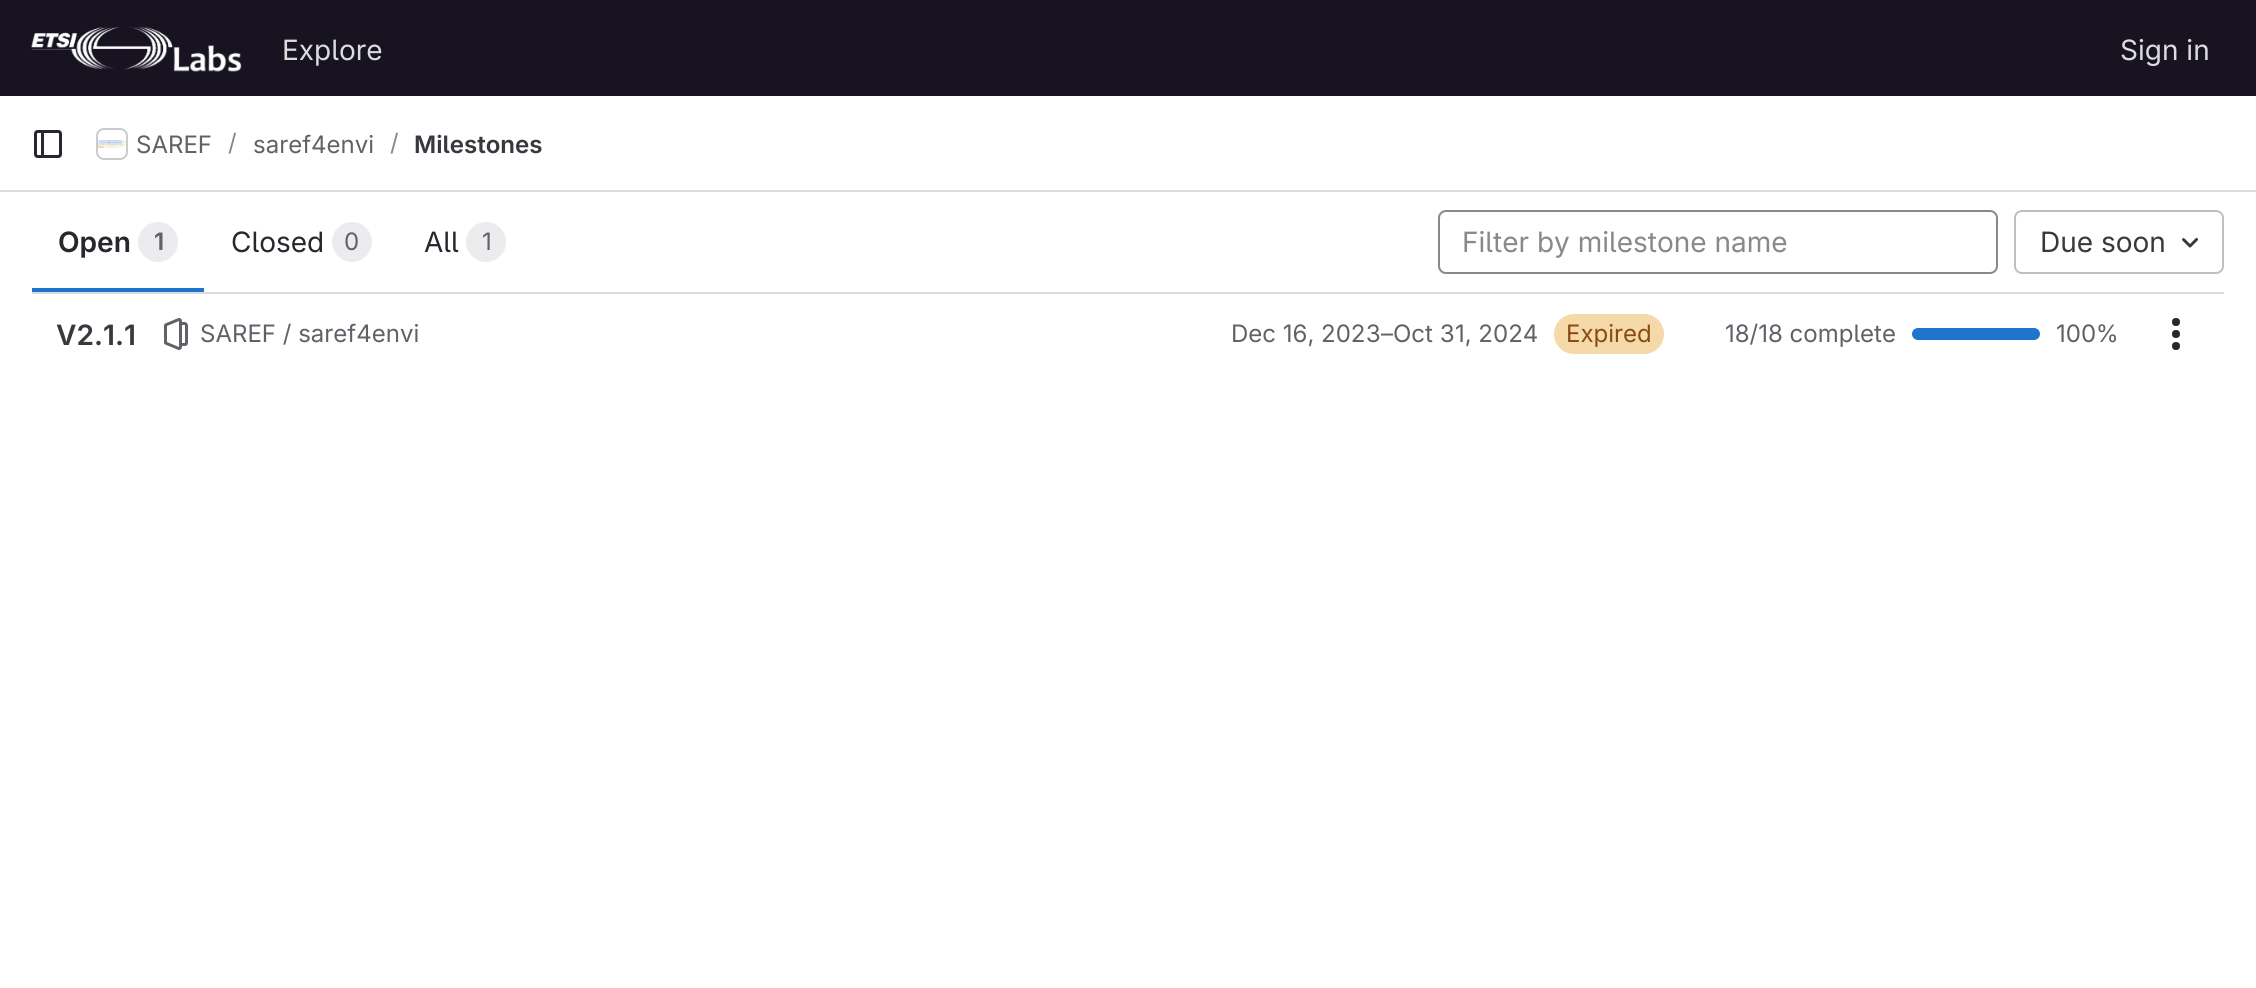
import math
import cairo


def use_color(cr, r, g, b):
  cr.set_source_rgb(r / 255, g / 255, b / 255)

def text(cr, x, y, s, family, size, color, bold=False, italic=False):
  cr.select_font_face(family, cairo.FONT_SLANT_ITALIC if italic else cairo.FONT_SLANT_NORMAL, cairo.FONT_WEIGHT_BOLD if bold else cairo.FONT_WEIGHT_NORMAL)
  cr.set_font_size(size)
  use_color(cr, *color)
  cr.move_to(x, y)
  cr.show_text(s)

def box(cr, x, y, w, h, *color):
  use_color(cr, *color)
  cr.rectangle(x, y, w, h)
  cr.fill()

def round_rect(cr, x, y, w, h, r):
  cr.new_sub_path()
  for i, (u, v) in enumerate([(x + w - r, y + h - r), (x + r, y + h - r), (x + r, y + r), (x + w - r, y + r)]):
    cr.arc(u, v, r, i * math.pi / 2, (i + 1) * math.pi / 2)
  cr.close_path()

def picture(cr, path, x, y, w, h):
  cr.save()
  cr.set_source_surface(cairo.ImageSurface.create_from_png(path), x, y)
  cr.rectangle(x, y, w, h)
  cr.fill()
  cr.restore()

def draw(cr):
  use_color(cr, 255, 255, 255)
  cr.paint()
  box(cr, 0, 0, 2256, 96, 23, 19, 33)
  picture(cr, "img_01.png", 31, 26, 211, 46)
  box(cr, 0, 190, 2256, 2, 220, 220, 222)
  picture(cr, "img_02.png", 34, 130, 28, 28)
  round_rect(cr, 97, 129, 30, 30, 7)
  cr.stroke()
  picture(cr, "img_03.png", 98, 140, 28, 8)
  round_rect(cr, 97, 129, 30, 30, 7)
  cr.set_source_rgba(0.02, 0.02, 0.024, 0.08)
  cr.stroke()
  box(cr, 32, 292, 2192, 2, 220, 220, 222)
  use_color(cr, 236, 236, 239)
  cr.arc(158, 242, 20, 0, 2 * math.pi)
  cr.fill()
  box(cr, 32, 288, 172, 4, 31, 117, 203)
  use_color(cr, 236, 236, 239)
  cr.arc(352, 242, 20, 0, 2 * math.pi)
  cr.fill()
  cr.arc(486, 242, 20, 0, 2 * math.pi)
  cr.fill()
  round_rect(cr, 1439, 211, 558, 62, 7)
  use_color(cr, 137, 136, 141)
  cr.stroke()
  round_rect(cr, 2015, 211, 208, 62, 7)
  use_color(cr, 191, 191, 195)
  cr.stroke()
  picture(cr, "img_04.png", 2182, 237, 17, 11)
  picture(cr, "img_05.png", 164, 318, 24, 32)
  use_color(cr, 245, 217, 168)
  round_rect(cr, 1554, 314, 110, 40, 20)
  cr.fill()
  use_color(cr, 31, 117, 203)
  round_rect(cr, 1912, 328, 128, 12, 6)
  cr.fill()
  picture(cr, "img_06.png", 2172, 318, 8, 32)
  text(cr, 282, 60, "Explore", "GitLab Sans", 28, (220, 220, 222))
  text(cr, 2120, 60, "Sign in", "GitLab Sans", 28, (220, 220, 222))
  text(cr, 136, 153, "SAREF", "GitLab Sans", 24, (98, 97, 104))
  text(cr, 228, 151, "/", "GitLab Sans", 24, (137, 136, 141))
  text(cr, 253, 153, "saref4envi", "GitLab Sans", 24, (98, 97, 104))
  text(cr, 390, 151, "/", "GitLab Sans", 24, (137, 136, 141))
  text(cr, 414, 153, "Milestones", "GitLab Sans SemiBold", 24, (58, 56, 63))
  text(cr, 58, 252, "Open", "GitLab Sans SemiBold", 28, (40, 39, 45))
  text(cr, 154, 250, "1", "GitLab Sans SemiBold", 24, (98, 97, 104))
  text(cr, 231, 252, "Closed", "GitLab Sans", 28, (40, 39, 45))
  text(cr, 344, 250, "0", "GitLab Sans", 24, (98, 97, 104))
  text(cr, 424, 252, "All", "GitLab Sans", 28, (40, 39, 45))
  text(cr, 482, 250, "1", "GitLab Sans", 24, (98, 97, 104))
  text(cr, 1462, 252, "Filter by milestone name", "GitLab Sans", 28, (137, 136, 141))
  text(cr, 2040, 252, "Due soon", "GitLab Sans", 28, (58, 56, 63))
  text(cr, 56, 345, "V2.1.1", "GitLab Sans SemiBold", 28, (58, 56, 63))
  text(cr, 200, 342, "SAREF / saref4envi", "GitLab Sans", 24, (98, 97, 104))
  text(cr, 1231, 342, "Dec 16, 2023–Oct 31, 2024", "GitLab Sans", 24, (98, 97, 104))
  text(cr, 1566, 342, "Expired", "GitLab Sans", 24, (137, 75, 22))
  text(cr, 1725, 342, "18/18 complete", "GitLab Sans", 24, (98, 97, 104))
  text(cr, 2056, 342, "100%", "GitLab Sans", 24, (98, 97, 104))


surface = cairo.ImageSurface(cairo.FORMAT_RGB24, 2256, 988)
cr = cairo.Context(surface)
options = cairo.FontOptions()
options.set_hint_metrics(cairo.HINT_METRICS_OFF)
options.set_hint_style(cairo.HINT_STYLE_NONE)
cr.set_font_options(options)
cr.set_miter_limit(4)
draw(cr)
surface.write_to_png("out.png")
